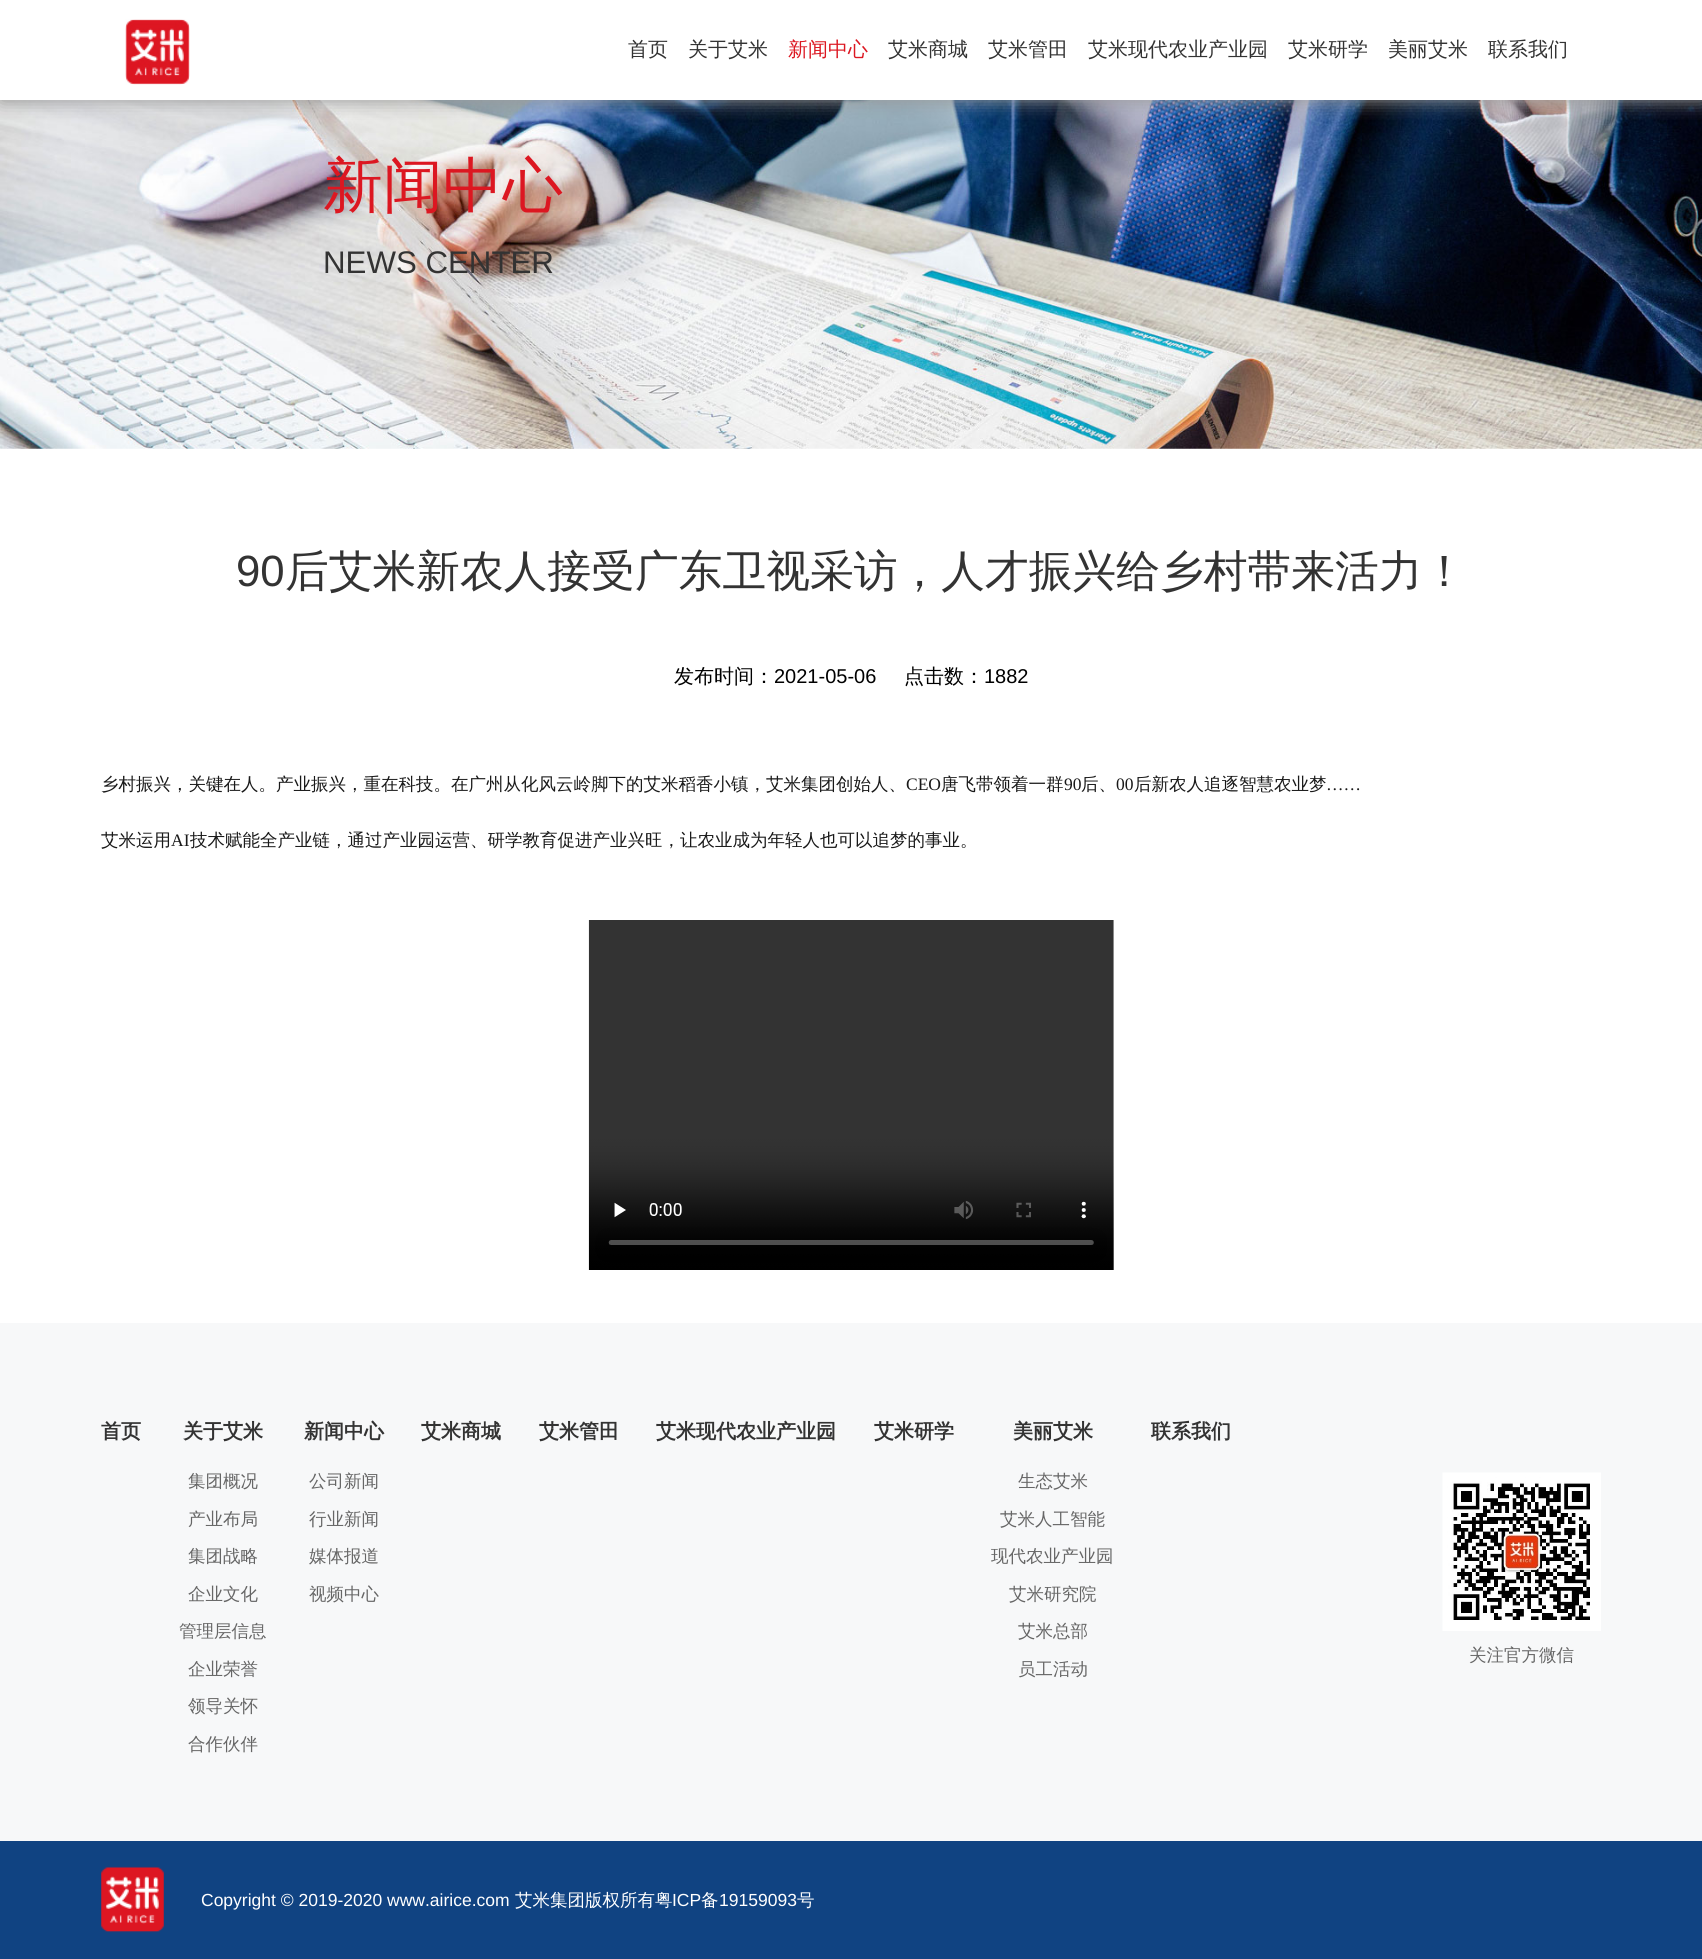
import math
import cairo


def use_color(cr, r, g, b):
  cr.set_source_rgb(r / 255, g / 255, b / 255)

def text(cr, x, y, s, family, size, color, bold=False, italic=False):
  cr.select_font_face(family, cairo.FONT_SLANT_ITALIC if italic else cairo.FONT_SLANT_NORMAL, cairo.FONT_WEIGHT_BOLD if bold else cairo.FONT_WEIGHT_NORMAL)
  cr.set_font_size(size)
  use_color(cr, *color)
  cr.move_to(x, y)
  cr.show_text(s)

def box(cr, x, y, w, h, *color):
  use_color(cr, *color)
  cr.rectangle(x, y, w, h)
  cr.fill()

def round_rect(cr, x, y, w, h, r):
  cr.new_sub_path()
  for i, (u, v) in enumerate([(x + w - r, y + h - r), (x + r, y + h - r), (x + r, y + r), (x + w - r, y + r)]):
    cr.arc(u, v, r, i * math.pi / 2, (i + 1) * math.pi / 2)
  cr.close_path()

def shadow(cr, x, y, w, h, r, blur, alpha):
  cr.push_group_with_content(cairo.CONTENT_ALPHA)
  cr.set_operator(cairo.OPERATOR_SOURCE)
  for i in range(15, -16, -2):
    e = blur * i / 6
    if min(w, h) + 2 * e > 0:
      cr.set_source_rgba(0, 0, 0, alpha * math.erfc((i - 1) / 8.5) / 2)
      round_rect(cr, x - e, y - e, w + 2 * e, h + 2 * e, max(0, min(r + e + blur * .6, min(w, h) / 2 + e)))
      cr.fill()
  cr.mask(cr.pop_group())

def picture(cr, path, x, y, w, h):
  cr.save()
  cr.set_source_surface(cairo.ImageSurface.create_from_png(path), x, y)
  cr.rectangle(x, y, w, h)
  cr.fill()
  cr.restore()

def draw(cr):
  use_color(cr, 255, 255, 255)
  cr.paint()
  picture(cr, "img_02.png", 0, 100, 1702, 349)
  cr.save()
  cr.rectangle(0, 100, 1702, 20)
  cr.clip()
  use_color(cr, 153, 153, 153)
  shadow(cr, 1, 1, 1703, 100, 0, 9.5, 1)
  cr.restore()
  picture(cr, "img_01.png", 125, 19, 65, 66)
  picture(cr, "img_03.png", 588, 920, 526, 350)
  box(cr, 0, 1323, 1702, 518, 247, 248, 249)
  picture(cr, "img_04.png", 1442, 1472, 159, 159)
  box(cr, 0, 1841, 1702, 118, 16, 67, 130)
  picture(cr, "img_05.png", 101, 1866, 63, 67)
  text(cr, 628, 56, "首页", "WenQuanYi Zen Hei Medium", 20, (51, 51, 51))
  text(cr, 688, 56, "关于艾米", "WenQuanYi Zen Hei Medium", 20, (51, 51, 51))
  text(cr, 788, 56, "新闻中心", "WenQuanYi Zen Hei Medium", 20, (220, 23, 33))
  text(cr, 888, 56, "艾米商城", "WenQuanYi Zen Hei Medium", 20, (51, 51, 51))
  text(cr, 988, 56, "艾米管田", "WenQuanYi Zen Hei Medium", 20, (51, 51, 51))
  text(cr, 1088, 56, "艾米现代农业产业园", "WenQuanYi Zen Hei Medium", 20, (51, 51, 51))
  text(cr, 1288, 56, "艾米研学", "WenQuanYi Zen Hei Medium", 20, (51, 51, 51))
  text(cr, 1388, 56, "美丽艾米", "WenQuanYi Zen Hei Medium", 20, (51, 51, 51))
  text(cr, 1488, 56, "联系我们", "WenQuanYi Zen Hei Medium", 20, (51, 51, 51))
  text(cr, 323, 206, "新闻中心", "WenQuanYi Zen Hei Medium", 60, (220, 23, 33))
  text(cr, 323, 273, "NEWS CENTER", "Liberation Sans", 31.25, (51, 51, 51))
  text(cr, 236, 586, "90", "Liberation Sans", 43.75, (51, 51, 51))
  text(cr, 285, 586, "后艾米新农人接受广东卫视采访，人才振兴给乡村带来活力！", "WenQuanYi Zen Hei Medium", 43.75, (51, 51, 51))
  text(cr, 674, 683, "发布时间：", "WenQuanYi Zen Hei Medium", 20, (0, 0, 0))
  text(cr, 774, 683, "2021-05-06", "Liberation Sans", 20, (0, 0, 0))
  text(cr, 904, 683, "点击数：", "WenQuanYi Zen Hei Medium", 20, (0, 0, 0))
  text(cr, 984, 683, "1882", "Liberation Sans", 20, (0, 0, 0))
  text(cr, 101, 790, "乡村振兴，关键在人。产业振兴，重在科技。在广州从化风云岭脚下的艾米稻香小镇，艾米集团创始人、", "WenQuanYi Zen Hei Medium", 17.5, (25, 25, 25))
  text(cr, 906, 790, "CEO", "Liberation Serif", 17.5, (25, 25, 25))
  text(cr, 941, 790, "唐飞带领着一群", "WenQuanYi Zen Hei Medium", 17.5, (25, 25, 25))
  text(cr, 1064, 790, "90", "Liberation Serif", 17.5, (25, 25, 25))
  text(cr, 1081, 790, "后、", "WenQuanYi Zen Hei Medium", 17.5, (25, 25, 25))
  text(cr, 1116, 790, "00", "Liberation Serif", 17.5, (25, 25, 25))
  text(cr, 1134, 790, "后新农人追逐智慧农业梦", "WenQuanYi Zen Hei Medium", 17.5, (25, 25, 25))
  text(cr, 1326, 790, "……", "Liberation Serif", 17.5, (25, 25, 25))
  text(cr, 101, 846, "艾米运用", "WenQuanYi Zen Hei Medium", 17.5, (25, 25, 25))
  text(cr, 171, 846, "AI", "Liberation Serif", 17.5, (25, 25, 25))
  text(cr, 190, 846, "技术赋能全产业链，通过产业园运营、研学教育促进产业兴旺，让农业成为年轻人也可以追梦的事业。", "WenQuanYi Zen Hei Medium", 17.5, (25, 25, 25))
  text(cr, 101, 1438, "首页", "WenQuanYi Zen Hei", 20, (51, 51, 51), bold=True)
  text(cr, 183, 1438, "关于艾米", "WenQuanYi Zen Hei", 20, (51, 51, 51), bold=True)
  text(cr, 188, 1487, "集团概况", "WenQuanYi Zen Hei Medium", 17.5, (102, 102, 102))
  text(cr, 188, 1525, "产业布局", "WenQuanYi Zen Hei Medium", 17.5, (102, 102, 102))
  text(cr, 188, 1562, "集团战略", "WenQuanYi Zen Hei Medium", 17.5, (102, 102, 102))
  text(cr, 188, 1600, "企业文化", "WenQuanYi Zen Hei Medium", 17.5, (102, 102, 102))
  text(cr, 179, 1637, "管理层信息", "WenQuanYi Zen Hei Medium", 17.5, (102, 102, 102))
  text(cr, 188, 1675, "企业荣誉", "WenQuanYi Zen Hei Medium", 17.5, (102, 102, 102))
  text(cr, 188, 1712, "领导关怀", "WenQuanYi Zen Hei Medium", 17.5, (102, 102, 102))
  text(cr, 188, 1750, "合作伙伴", "WenQuanYi Zen Hei Medium", 17.5, (102, 102, 102))
  text(cr, 304, 1438, "新闻中心", "WenQuanYi Zen Hei", 20, (51, 51, 51), bold=True)
  text(cr, 309, 1487, "公司新闻", "WenQuanYi Zen Hei Medium", 17.5, (102, 102, 102))
  text(cr, 309, 1525, "行业新闻", "WenQuanYi Zen Hei Medium", 17.5, (102, 102, 102))
  text(cr, 309, 1562, "媒体报道", "WenQuanYi Zen Hei Medium", 17.5, (102, 102, 102))
  text(cr, 309, 1600, "视频中心", "WenQuanYi Zen Hei Medium", 17.5, (102, 102, 102))
  text(cr, 421, 1438, "艾米商城", "WenQuanYi Zen Hei", 20, (51, 51, 51), bold=True)
  text(cr, 539, 1438, "艾米管田", "WenQuanYi Zen Hei", 20, (51, 51, 51), bold=True)
  text(cr, 656, 1438, "艾米现代农业产业园", "WenQuanYi Zen Hei", 20, (51, 51, 51), bold=True)
  text(cr, 874, 1438, "艾米研学", "WenQuanYi Zen Hei", 20, (51, 51, 51), bold=True)
  text(cr, 1013, 1438, "美丽艾米", "WenQuanYi Zen Hei", 20, (51, 51, 51), bold=True)
  text(cr, 1018, 1487, "生态艾米", "WenQuanYi Zen Hei Medium", 17.5, (102, 102, 102))
  text(cr, 1000, 1525, "艾米人工智能", "WenQuanYi Zen Hei Medium", 17.5, (102, 102, 102))
  text(cr, 991, 1562, "现代农业产业园", "WenQuanYi Zen Hei Medium", 17.5, (102, 102, 102))
  text(cr, 1009, 1600, "艾米研究院", "WenQuanYi Zen Hei Medium", 17.5, (102, 102, 102))
  text(cr, 1018, 1637, "艾米总部", "WenQuanYi Zen Hei Medium", 17.5, (102, 102, 102))
  text(cr, 1018, 1675, "员工活动", "WenQuanYi Zen Hei Medium", 17.5, (102, 102, 102))
  text(cr, 1151, 1438, "联系我们", "WenQuanYi Zen Hei", 20, (51, 51, 51), bold=True)
  text(cr, 1469, 1661, "关注官方微信", "WenQuanYi Zen Hei Medium", 17.5, (102, 102, 102))
  text(cr, 201, 1906, "Copyright © 2019-2020 www.airice.com", "Liberation Sans", 17.5, (255, 255, 255))
  text(cr, 515, 1906, "艾米集团版权所有粤", "WenQuanYi Zen Hei Medium", 17.5, (255, 255, 255))
  text(cr, 672, 1906, "ICP", "Liberation Sans", 17.5, (255, 255, 255))
  text(cr, 701, 1906, "备", "WenQuanYi Zen Hei Medium", 17.5, (255, 255, 255))
  text(cr, 719, 1906, "19159093", "Liberation Sans", 17.5, (255, 255, 255))
  text(cr, 797, 1906, "号", "WenQuanYi Zen Hei Medium", 17.5, (255, 255, 255))


surface = cairo.ImageSurface(cairo.FORMAT_RGB24, 1702, 1959)
cr = cairo.Context(surface)
options = cairo.FontOptions()
options.set_hint_metrics(cairo.HINT_METRICS_OFF)
options.set_hint_style(cairo.HINT_STYLE_NONE)
cr.set_font_options(options)
cr.set_miter_limit(4)
draw(cr)
surface.write_to_png("out.png")
